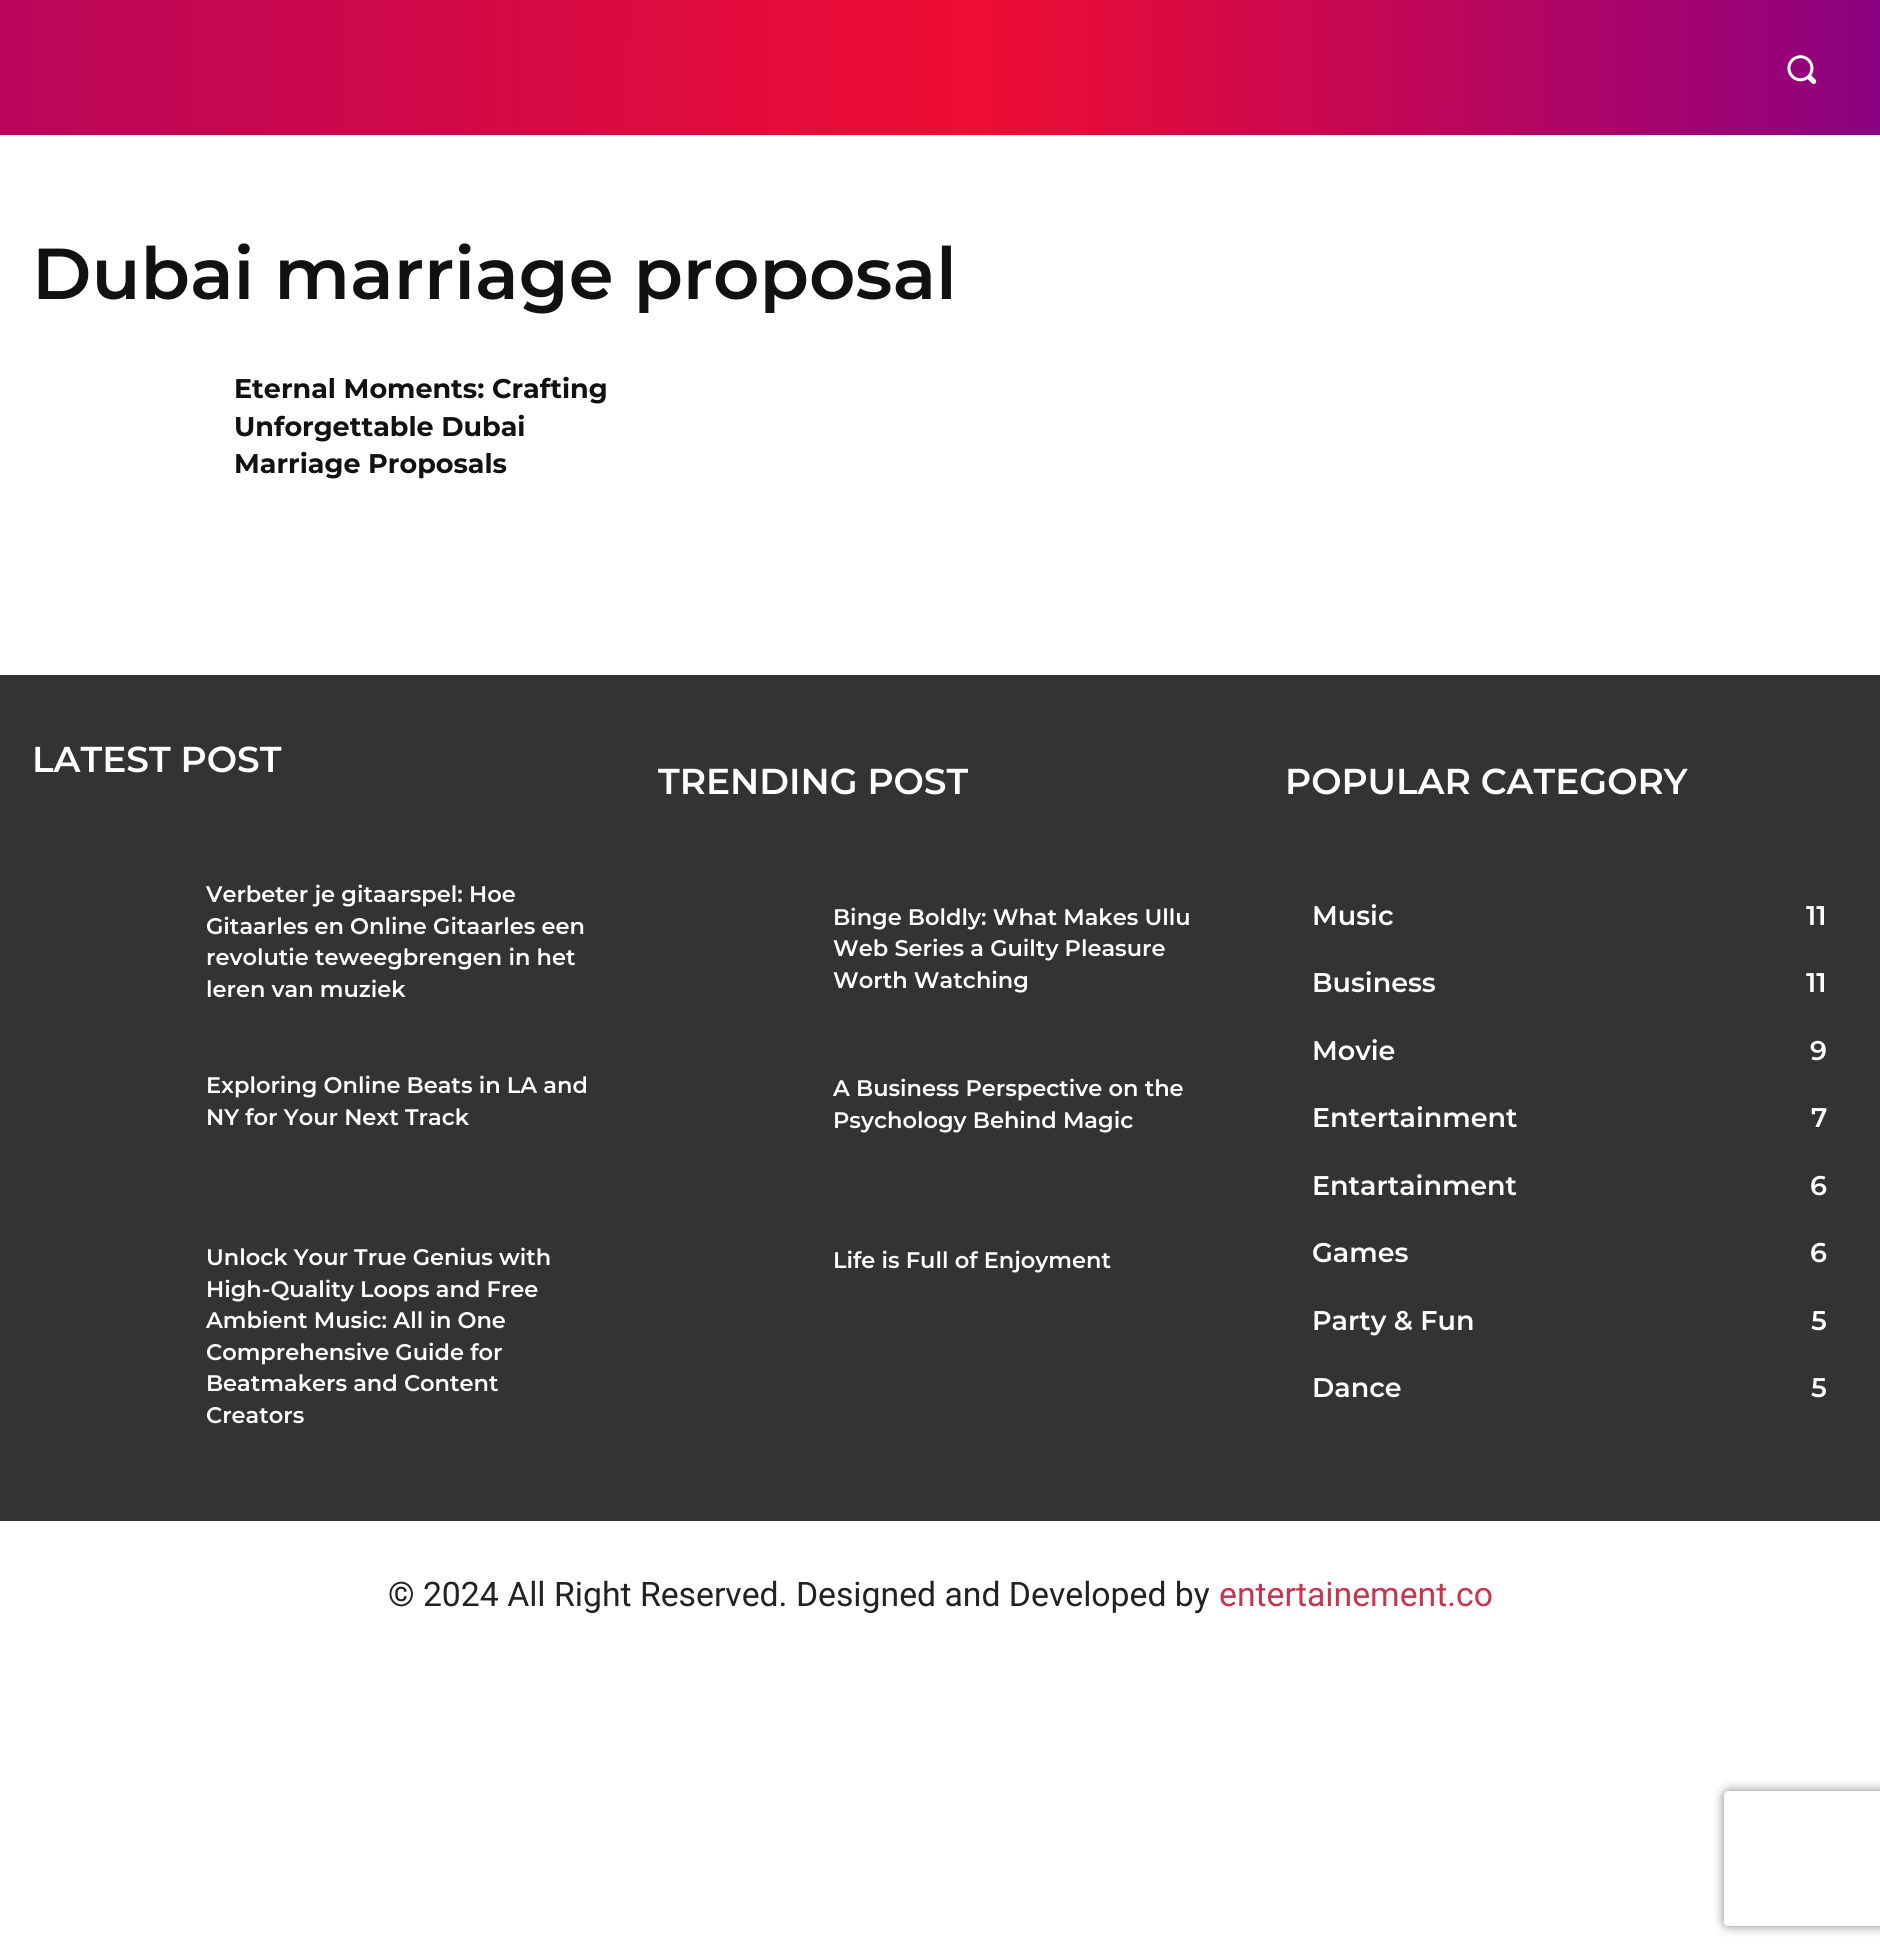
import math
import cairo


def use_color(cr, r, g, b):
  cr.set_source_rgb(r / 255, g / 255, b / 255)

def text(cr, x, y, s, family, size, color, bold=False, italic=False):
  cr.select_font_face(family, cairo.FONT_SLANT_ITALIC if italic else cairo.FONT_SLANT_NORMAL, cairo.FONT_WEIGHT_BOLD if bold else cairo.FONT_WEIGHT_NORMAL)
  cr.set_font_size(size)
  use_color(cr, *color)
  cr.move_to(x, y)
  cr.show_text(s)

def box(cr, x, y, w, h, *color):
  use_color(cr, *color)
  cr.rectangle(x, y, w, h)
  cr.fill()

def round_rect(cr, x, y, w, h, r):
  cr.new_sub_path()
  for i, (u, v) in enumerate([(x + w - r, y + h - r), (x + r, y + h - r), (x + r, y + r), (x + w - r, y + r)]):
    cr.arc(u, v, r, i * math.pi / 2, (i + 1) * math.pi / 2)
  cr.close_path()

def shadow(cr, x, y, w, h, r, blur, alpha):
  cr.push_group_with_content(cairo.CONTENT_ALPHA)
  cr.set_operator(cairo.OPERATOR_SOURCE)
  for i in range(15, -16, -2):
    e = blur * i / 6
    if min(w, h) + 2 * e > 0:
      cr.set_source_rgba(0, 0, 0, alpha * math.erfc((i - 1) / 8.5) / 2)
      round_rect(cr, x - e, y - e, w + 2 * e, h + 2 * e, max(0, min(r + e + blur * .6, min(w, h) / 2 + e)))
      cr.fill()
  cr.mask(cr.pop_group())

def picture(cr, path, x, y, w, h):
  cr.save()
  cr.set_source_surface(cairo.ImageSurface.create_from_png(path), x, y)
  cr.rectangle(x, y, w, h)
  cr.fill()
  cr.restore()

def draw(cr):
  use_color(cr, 255, 255, 255)
  cr.paint()
  gradient = cairo.LinearGradient(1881, 68, 0, 67)
  gradient.add_color_stop_rgba(0, 0.549, 0.004, 0.506, 1)
  gradient.add_color_stop_rgba(0.48, 0.937, 0.051, 0.196, 1)
  gradient.add_color_stop_rgba(1, 0.725, 0.024, 0.357, 1)
  cr.set_source(gradient)
  cr.rectangle(0, 0, 1880, 135)
  cr.fill()
  picture(cr, "img_01.png", 1787, 55, 30, 29)
  box(cr, 0, 675, 1880, 846, 51, 51, 51)
  cr.save()
  cr.set_fill_rule(cairo.FILL_RULE_EVEN_ODD)
  cr.new_path()
  cr.move_to(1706, 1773)
  cr.line_to(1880, 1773)
  cr.line_to(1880, 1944)
  cr.line_to(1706, 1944)
  cr.close_path()
  cr.move_to(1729, 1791)
  cr.line_to(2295, 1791)
  cr.curve_to(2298, 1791, 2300, 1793, 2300, 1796)
  cr.line_to(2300, 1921)
  cr.curve_to(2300, 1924, 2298, 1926, 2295, 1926)
  cr.line_to(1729, 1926)
  cr.curve_to(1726, 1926, 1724, 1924, 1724, 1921)
  cr.line_to(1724, 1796)
  cr.curve_to(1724, 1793, 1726, 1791, 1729, 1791)
  cr.close_path()
  cr.clip()
  use_color(cr, 128, 128, 128)
  shadow(cr, 1724, 1791, 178, 135, 5, 5.5, 1)
  cr.restore()
  text(cr, 32, 299, "Dubai marriage proposal", "Montserrat SemiBold", 72, (17, 17, 17))
  text(cr, 234, 398, "Eternal Moments: Crafting", "Montserrat", 27, (17, 17, 17), bold=True)
  text(cr, 234, 436, "Unforgettable Dubai", "Montserrat", 27, (17, 17, 17), bold=True)
  text(cr, 234, 473, "Marriage Proposals", "Montserrat", 27, (17, 17, 17), bold=True)
  text(cr, 32, 772, "LATEST POST", "Montserrat SemiBold", 36, (255, 255, 255))
  text(cr, 206, 902, "Verbeter je gitaarspel: Hoe", "Montserrat SemiBold", 22.5, (255, 255, 255))
  text(cr, 206, 934, "Gitaarles en Online Gitaarles een", "Montserrat SemiBold", 22.5, (255, 255, 255))
  text(cr, 206, 965, "revolutie teweegbrengen in het", "Montserrat SemiBold", 22.5, (255, 255, 255))
  text(cr, 206, 997, "leren van muziek", "Montserrat SemiBold", 22.5, (255, 255, 255))
  text(cr, 206, 1093, "Exploring Online Beats in LA and", "Montserrat SemiBold", 22.5, (255, 255, 255))
  text(cr, 206, 1125, "NY for Your Next Track", "Montserrat SemiBold", 22.5, (255, 255, 255))
  text(cr, 206, 1265, "Unlock Your True Genius with", "Montserrat SemiBold", 22.5, (255, 255, 255))
  text(cr, 206, 1297, "High-Quality Loops and Free", "Montserrat SemiBold", 22.5, (255, 255, 255))
  text(cr, 206, 1328, "Ambient Music: All in One", "Montserrat SemiBold", 22.5, (255, 255, 255))
  text(cr, 206, 1360, "Comprehensive Guide for", "Montserrat SemiBold", 22.5, (255, 255, 255))
  text(cr, 206, 1391, "Beatmakers and Content", "Montserrat SemiBold", 22.5, (255, 255, 255))
  text(cr, 206, 1423, "Creators", "Montserrat SemiBold", 22.5, (255, 255, 255))
  text(cr, 658, 794, "TRENDING POST", "Montserrat SemiBold", 36, (255, 255, 255))
  text(cr, 833, 925, "Binge Boldly: What Makes Ullu", "Montserrat SemiBold", 22.5, (255, 255, 255))
  text(cr, 833, 956, "Web Series a Guilty Pleasure", "Montserrat SemiBold", 22.5, (255, 255, 255))
  text(cr, 833, 988, "Worth Watching", "Montserrat SemiBold", 22.5, (255, 255, 255))
  text(cr, 833, 1096, "A Business Perspective on the", "Montserrat SemiBold", 22.5, (255, 255, 255))
  text(cr, 833, 1128, "Psychology Behind Magic", "Montserrat SemiBold", 22.5, (255, 255, 255))
  text(cr, 833, 1268, "Life is Full of Enjoyment", "Montserrat SemiBold", 22.5, (255, 255, 255))
  text(cr, 1285, 794, "POPULAR CATEGORY", "Montserrat SemiBold", 36, (255, 255, 255))
  text(cr, 1312, 925, "Music", "Montserrat SemiBold", 27, (255, 255, 255))
  text(cr, 1806, 925, "11", "Montserrat SemiBold", 27, (255, 255, 255))
  text(cr, 1312, 992, "Business", "Montserrat SemiBold", 27, (255, 255, 255))
  text(cr, 1806, 992, "11", "Montserrat SemiBold", 27, (255, 255, 255))
  text(cr, 1312, 1060, "Movie", "Montserrat SemiBold", 27, (255, 255, 255))
  text(cr, 1810, 1060, "9", "Montserrat SemiBold", 27, (255, 255, 255))
  text(cr, 1312, 1127, "Entertainment", "Montserrat SemiBold", 27, (255, 255, 255))
  text(cr, 1811, 1127, "7", "Montserrat SemiBold", 27, (255, 255, 255))
  text(cr, 1312, 1195, "Entartainment", "Montserrat SemiBold", 27, (255, 255, 255))
  text(cr, 1810, 1195, "6", "Montserrat SemiBold", 27, (255, 255, 255))
  text(cr, 1312, 1262, "Games", "Montserrat SemiBold", 27, (255, 255, 255))
  text(cr, 1810, 1262, "6", "Montserrat SemiBold", 27, (255, 255, 255))
  text(cr, 1312, 1330, "Party & Fun", "Montserrat SemiBold", 27, (255, 255, 255))
  text(cr, 1811, 1330, "5", "Montserrat SemiBold", 27, (255, 255, 255))
  text(cr, 1312, 1397, "Dance", "Montserrat SemiBold", 27, (255, 255, 255))
  text(cr, 1811, 1397, "5", "Montserrat SemiBold", 27, (255, 255, 255))
  text(cr, 388, 1606, "© 2024 All Right Reserved. Designed and Developed by", "Roboto", 33.75, (34, 34, 34))
  text(cr, 1219, 1606, "entertainement.co", "Roboto", 33.75, (196, 54, 78))


surface = cairo.ImageSurface(cairo.FORMAT_RGB24, 1880, 1957)
cr = cairo.Context(surface)
options = cairo.FontOptions()
options.set_hint_metrics(cairo.HINT_METRICS_OFF)
options.set_hint_style(cairo.HINT_STYLE_NONE)
cr.set_font_options(options)
cr.set_miter_limit(4)
draw(cr)
surface.write_to_png("out.png")
